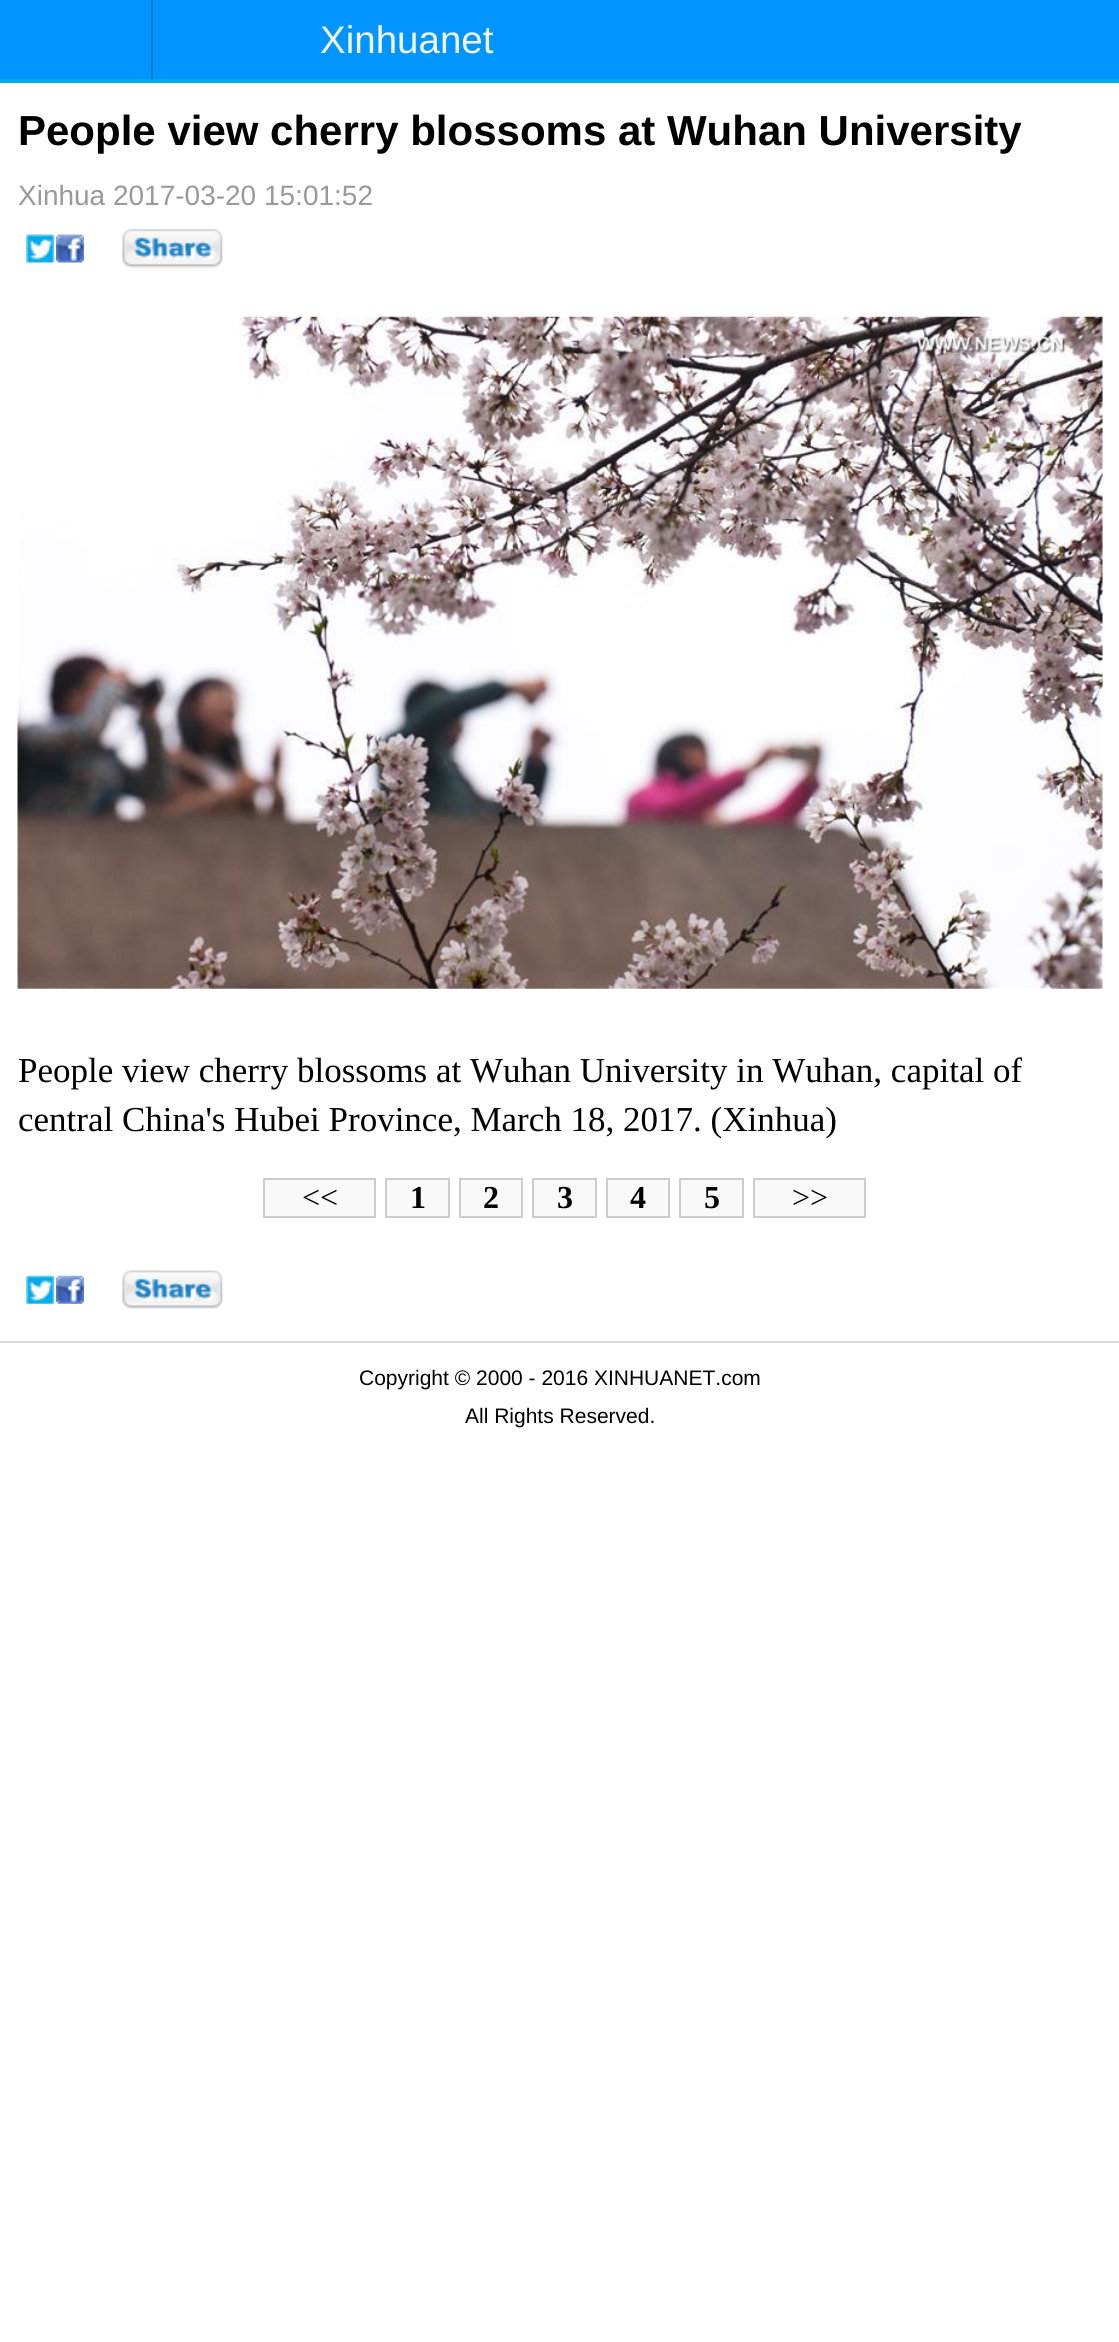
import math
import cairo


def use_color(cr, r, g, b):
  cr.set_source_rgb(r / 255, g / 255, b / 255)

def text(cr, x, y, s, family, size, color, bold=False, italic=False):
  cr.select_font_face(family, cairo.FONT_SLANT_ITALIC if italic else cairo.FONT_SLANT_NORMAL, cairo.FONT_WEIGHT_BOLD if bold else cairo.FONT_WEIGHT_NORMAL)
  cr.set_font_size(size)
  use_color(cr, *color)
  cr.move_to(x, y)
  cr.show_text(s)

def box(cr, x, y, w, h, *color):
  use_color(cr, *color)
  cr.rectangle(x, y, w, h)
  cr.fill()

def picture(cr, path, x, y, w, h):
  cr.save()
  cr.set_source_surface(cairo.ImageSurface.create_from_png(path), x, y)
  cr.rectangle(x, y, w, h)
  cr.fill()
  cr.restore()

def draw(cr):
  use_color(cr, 255, 255, 255)
  cr.paint()
  box(cr, 0, 0, 1119, 79, 1, 149, 255)
  box(cr, 0, 79, 1119, 4, 0, 171, 231)
  box(cr, 151, 0, 2, 79, 0, 121, 200)
  picture(cr, "img_01.png", 26, 234, 29, 29)
  picture(cr, "img_02.png", 56, 234, 28, 29)
  picture(cr, "img_03.png", 122, 229, 101, 39)
  picture(cr, "img_04.png", 17, 316, 1086, 673)
  use_color(cr, 249, 249, 249)
  cr.rectangle(264, 1179, 111, 38)
  cr.fill_preserve()
  use_color(cr, 204, 204, 204)
  cr.stroke()
  use_color(cr, 249, 249, 249)
  cr.rectangle(386, 1179, 63, 38)
  cr.fill_preserve()
  use_color(cr, 204, 204, 204)
  cr.stroke()
  use_color(cr, 249, 249, 249)
  cr.rectangle(460, 1179, 62, 38)
  cr.fill_preserve()
  use_color(cr, 204, 204, 204)
  cr.stroke()
  use_color(cr, 249, 249, 249)
  cr.rectangle(533, 1179, 63, 38)
  cr.fill_preserve()
  use_color(cr, 204, 204, 204)
  cr.stroke()
  use_color(cr, 249, 249, 249)
  cr.rectangle(607, 1179, 62, 38)
  cr.fill_preserve()
  use_color(cr, 204, 204, 204)
  cr.stroke()
  use_color(cr, 249, 249, 249)
  cr.rectangle(680, 1179, 63, 38)
  cr.fill_preserve()
  use_color(cr, 204, 204, 204)
  cr.stroke()
  use_color(cr, 249, 249, 249)
  cr.rectangle(754, 1179, 111, 38)
  cr.fill_preserve()
  use_color(cr, 204, 204, 204)
  cr.stroke()
  picture(cr, "img_05.png", 26, 1275, 29, 29)
  picture(cr, "img_06.png", 56, 1275, 28, 29)
  picture(cr, "img_07.png", 122, 1270, 101, 39)
  box(cr, 0, 1341, 1119, 2, 219, 218, 218)
  text(cr, 320, 53, "Xinhuanet", "Liberation Sans", 38.5, (244, 247, 252))
  text(cr, 18, 145, "People view cherry blossoms at Wuhan University", "Liberation Sans", 42, (0, 0, 0), bold=True)
  text(cr, 18, 205, "Xinhua 2017-03-20 15:01:52", "Liberation Sans", 28, (153, 153, 153))
  text(cr, 18, 1082, "People view cherry blossoms at Wuhan University in Wuhan, capital of", "Liberation Serif", 35, (0, 0, 0))
  text(cr, 18, 1131, "central China's Hubei Province, March 18, 2017. (Xinhua)", "Liberation Serif", 35, (0, 0, 0))
  text(cr, 302, 1208, "<<", "Liberation Serif", 32, (0, 0, 0))
  text(cr, 410, 1208, "1", "Liberation Serif", 32, (0, 0, 0), bold=True)
  text(cr, 483, 1208, "2", "Liberation Serif", 32, (0, 0, 0), bold=True)
  text(cr, 557, 1208, "3", "Liberation Serif", 32, (0, 0, 0), bold=True)
  text(cr, 630, 1208, "4", "Liberation Serif", 32, (0, 0, 0), bold=True)
  text(cr, 704, 1208, "5", "Liberation Serif", 32, (0, 0, 0), bold=True)
  text(cr, 792, 1208, ">>", "Liberation Serif", 32, (0, 0, 0))
  text(cr, 359, 1385, "Copyright © 2000 - 2016 XINHUANET.com", "Liberation Sans", 21, (0, 0, 0))
  text(cr, 465, 1423, "All Rights Reserved.", "Liberation Sans", 21, (0, 0, 0))


surface = cairo.ImageSurface(cairo.FORMAT_RGB24, 1119, 2342)
cr = cairo.Context(surface)
options = cairo.FontOptions()
options.set_hint_metrics(cairo.HINT_METRICS_OFF)
options.set_hint_style(cairo.HINT_STYLE_NONE)
cr.set_font_options(options)
cr.set_miter_limit(4)
draw(cr)
surface.write_to_png("out.png")
